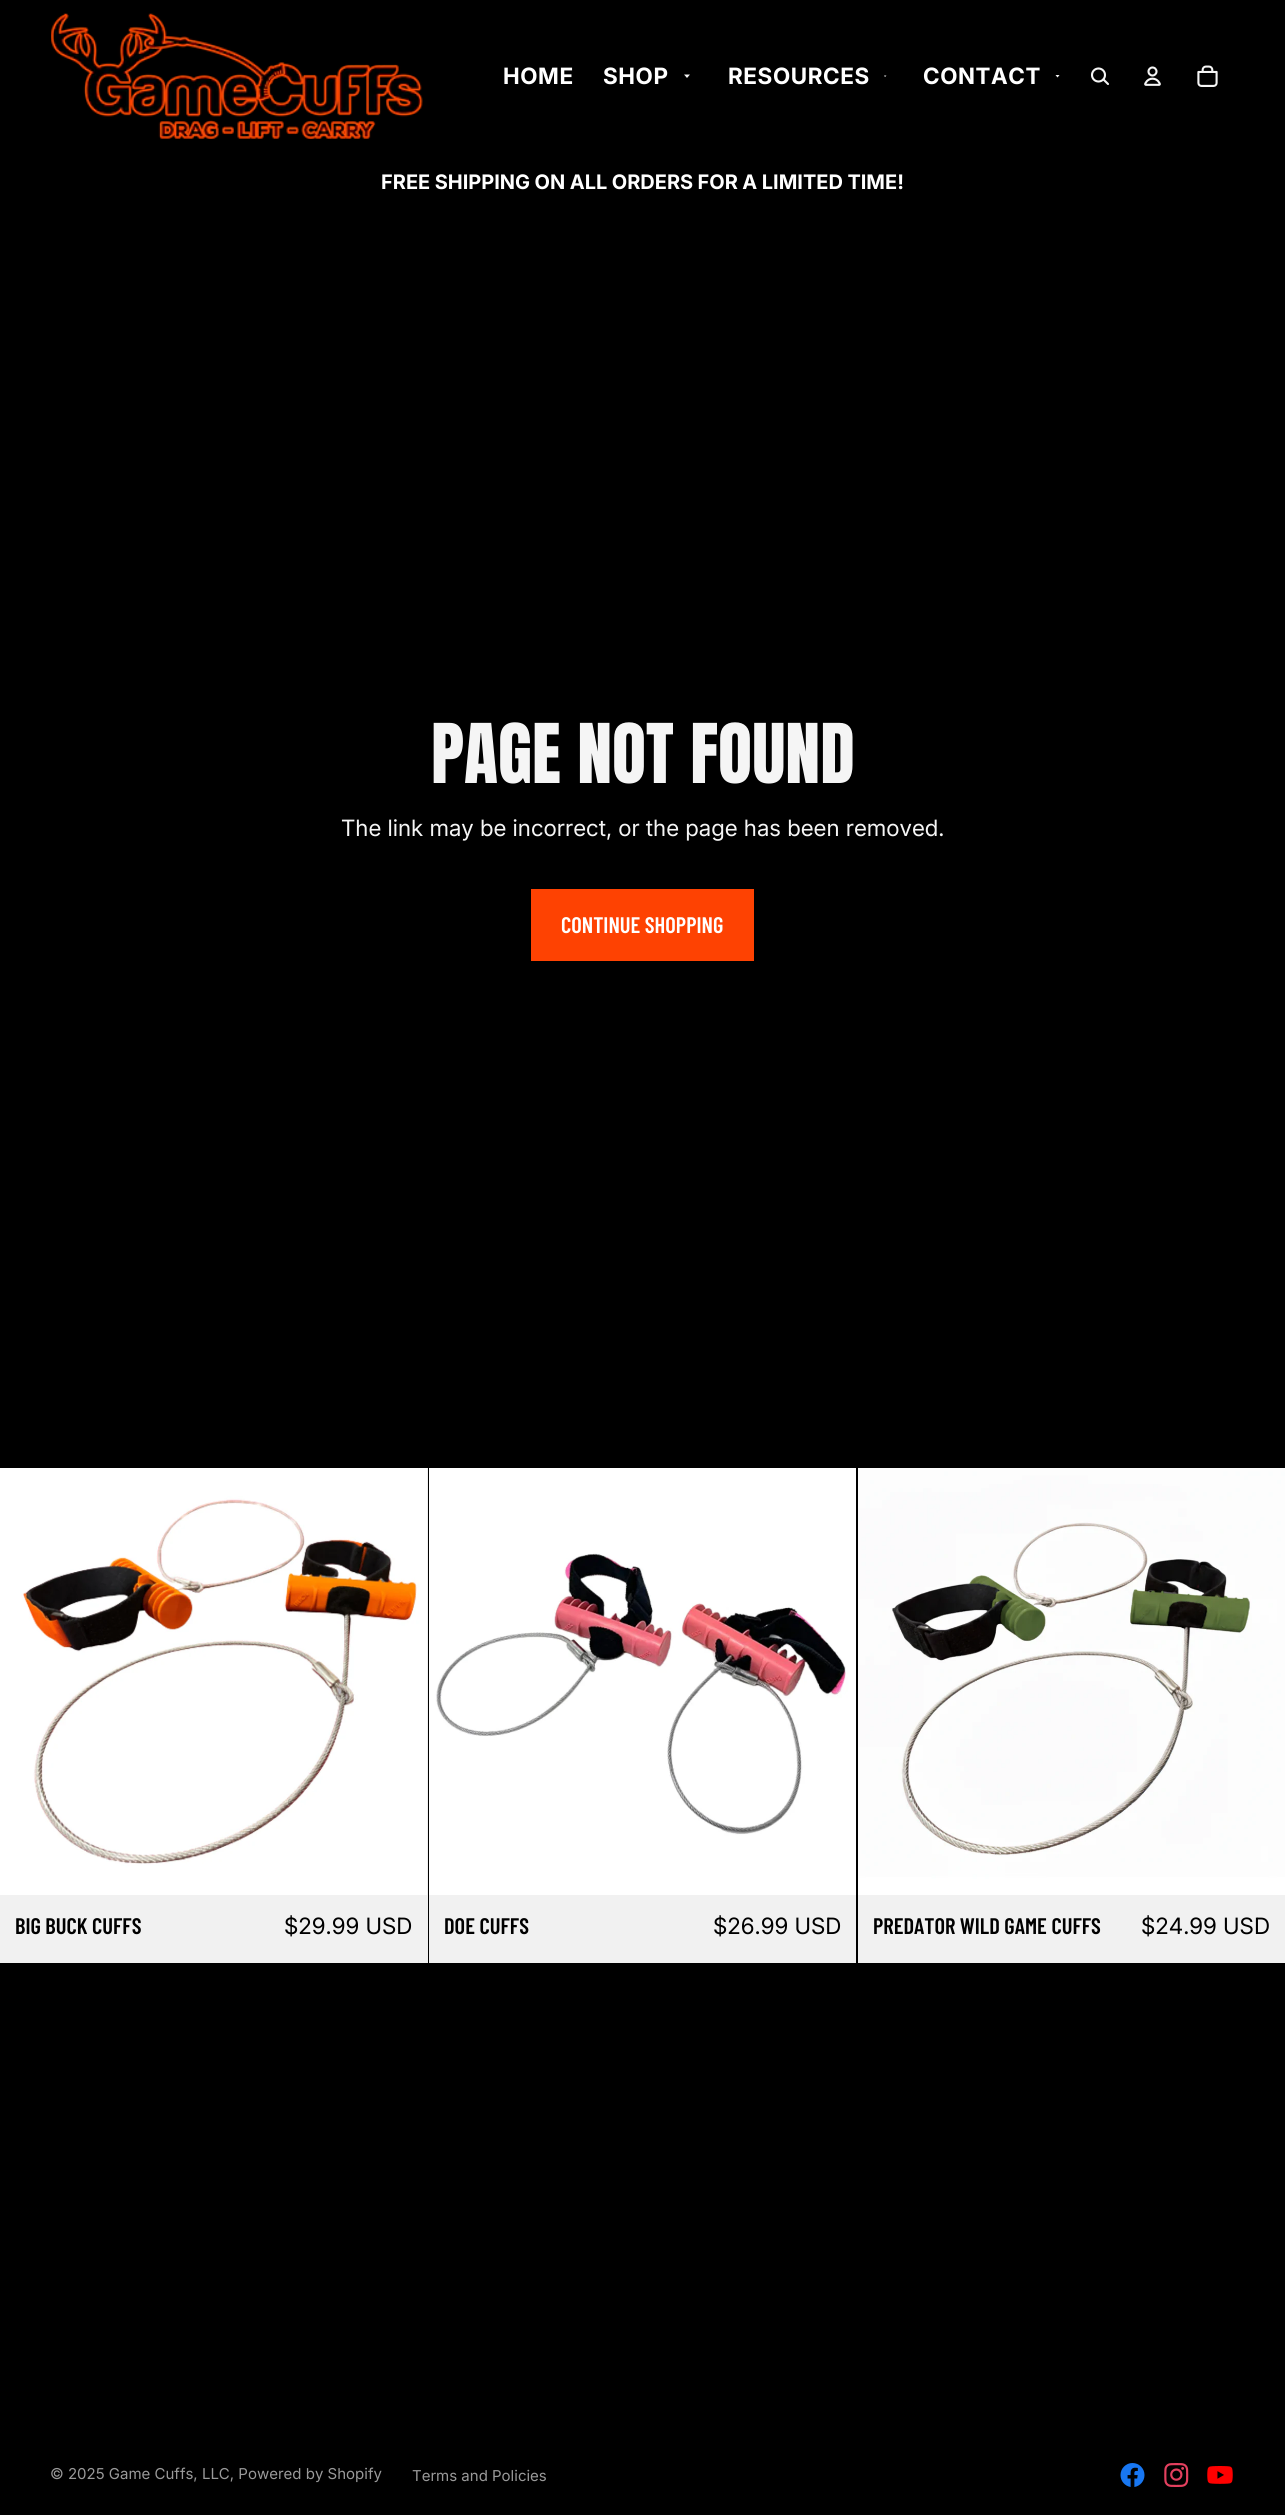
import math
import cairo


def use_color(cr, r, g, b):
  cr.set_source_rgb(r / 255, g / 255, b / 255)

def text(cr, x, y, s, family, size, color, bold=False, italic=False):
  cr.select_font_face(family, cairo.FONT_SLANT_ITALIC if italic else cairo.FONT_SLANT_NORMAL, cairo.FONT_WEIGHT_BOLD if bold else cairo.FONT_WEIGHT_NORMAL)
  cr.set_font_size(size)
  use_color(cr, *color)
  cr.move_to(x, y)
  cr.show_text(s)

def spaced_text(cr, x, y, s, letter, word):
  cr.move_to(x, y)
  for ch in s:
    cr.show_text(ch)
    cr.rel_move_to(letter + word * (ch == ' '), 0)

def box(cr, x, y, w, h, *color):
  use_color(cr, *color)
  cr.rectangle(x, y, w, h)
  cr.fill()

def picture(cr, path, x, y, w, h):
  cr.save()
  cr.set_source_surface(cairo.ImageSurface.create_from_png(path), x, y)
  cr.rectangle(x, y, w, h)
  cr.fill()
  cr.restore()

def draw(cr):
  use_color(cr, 0, 0, 0)
  cr.paint()
  picture(cr, "img_01.png", 51, 13, 372, 126)
  use_color(cr, 245, 245, 245)
  cr.new_path()
  cr.move_to(684, 74.5)
  cr.line_to(687, 78)
  cr.line_to(690, 74.5)
  cr.fill()
  cr.new_path()
  cr.move_to(884, 75.5)
  cr.line_to(885, 77)
  cr.line_to(886.5, 75.5)
  cr.fill()
  cr.new_path()
  cr.move_to(1055.5, 75)
  cr.line_to(1057.5, 77.5)
  cr.line_to(1059.5, 75)
  cr.fill()
  cr.arc(1098.5, 75, 6.5, 0, 2 * math.pi)
  cr.set_line_width(2.1)
  cr.stroke()
  cr.new_path()
  cr.move_to(1103.5, 79.5)
  cr.line_to(1108, 84)
  cr.set_line_cap(cairo.LINE_CAP_ROUND)
  cr.set_line_join(cairo.LINE_JOIN_ROUND)
  cr.stroke()
  picture(cr, "img_02.png", 1144, 66, 17, 20)
  picture(cr, "img_03.png", 1197, 65, 21, 22)
  box(cr, 531, 889, 223, 72, 254, 66, 2)
  box(cr, 0, 1468, 428, 495, 241, 241, 241)
  picture(cr, "img_04.png", 0, 1468, 427, 427)
  box(cr, 429, 1895, 427, 68, 241, 241, 241)
  picture(cr, "img_05.png", 429, 1468, 427, 427)
  box(cr, 858, 1895, 427, 68, 241, 241, 241)
  picture(cr, "img_06.png", 858, 1468, 427, 427)
  picture(cr, "img_07.png", 1120, 2463, 25, 24)
  picture(cr, "img_08.png", 1164, 2463, 25, 24)
  picture(cr, "img_09.png", 1207, 2466, 26, 18)
  cr.select_font_face("Inter", cairo.FONT_SLANT_NORMAL, cairo.FONT_WEIGHT_BOLD)
  cr.set_font_size(22.5)
  use_color(cr, 255, 255, 255)
  spaced_text(cr, 503, 84, "HOME", 0.6, 0)
  spaced_text(cr, 603, 84, "SHOP", 0.6, 0)
  spaced_text(cr, 728, 84, "RESOURCES", 0.6, 0)
  spaced_text(cr, 923, 84, "CONTACT", 0.6, 0)
  cr.select_font_face("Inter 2", cairo.FONT_SLANT_NORMAL, cairo.FONT_WEIGHT_BOLD)
  cr.set_font_size(20)
  spaced_text(cr, 381, 189, "FREE SHIPPING ON ALL ORDERS FOR A LIMITED TIME!", 0, -0.25)
  text(cr, 431, 783, "PAGE NOT FOUND", "Anton", 70, (245, 245, 245))
  text(cr, 341, 836, "The link may be incorrect, or the page has been removed.", "Inter", 22.5, (245, 245, 245))
  text(cr, 561, 933, "CONTINUE SHOPPING", "Barlow Condensed SemiBold", 22.5, (255, 255, 255))
  text(cr, 15, 1934, "BIG BUCK CUFFS", "Barlow Condensed SemiBold", 22.5, (0, 0, 0))
  text(cr, 284, 1934, "$29.99 USD", "Inter", 22.5, (0, 0, 0))
  text(cr, 444, 1934, "DOE CUFFS", "Barlow Condensed SemiBold", 22.5, (0, 0, 0))
  text(cr, 713, 1934, "$26.99 USD", "Inter", 22.5, (0, 0, 0))
  text(cr, 873, 1934, "PREDATOR WILD GAME CUFFS", "Barlow Condensed SemiBold", 22.5, (0, 0, 0))
  text(cr, 1141, 1934, "$24.99 USD", "Inter", 22.5, (0, 0, 0))
  text(cr, 50, 2479, "© 2025 Game Cuffs, LLC, Powered by Shopify", "Inter 2", 15, (153, 153, 153))
  text(cr, 412, 2481, "Terms and Policies", "Inter 2", 15, (153, 153, 153))


surface = cairo.ImageSurface(cairo.FORMAT_RGB24, 1285, 2515)
cr = cairo.Context(surface)
options = cairo.FontOptions()
options.set_hint_metrics(cairo.HINT_METRICS_OFF)
options.set_hint_style(cairo.HINT_STYLE_NONE)
cr.set_font_options(options)
cr.set_miter_limit(4)
draw(cr)
surface.write_to_png("out.png")
